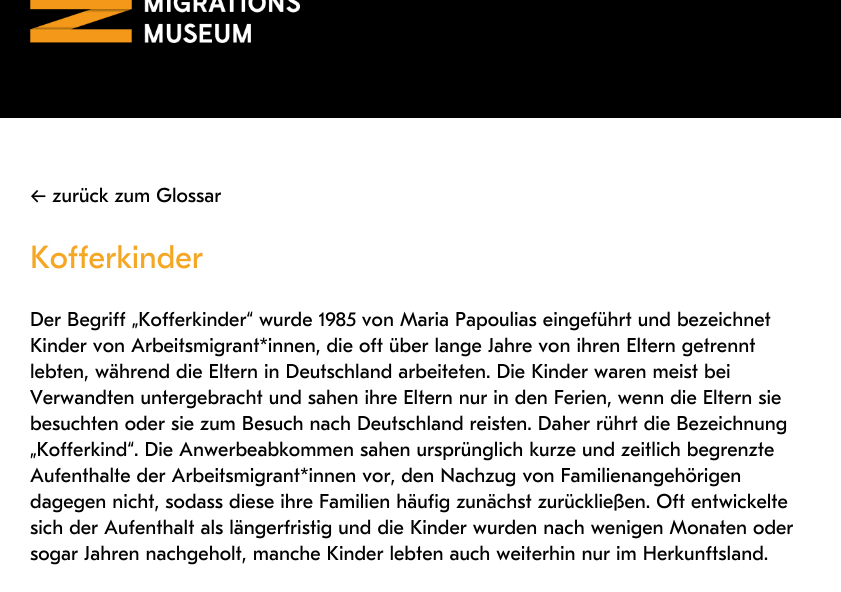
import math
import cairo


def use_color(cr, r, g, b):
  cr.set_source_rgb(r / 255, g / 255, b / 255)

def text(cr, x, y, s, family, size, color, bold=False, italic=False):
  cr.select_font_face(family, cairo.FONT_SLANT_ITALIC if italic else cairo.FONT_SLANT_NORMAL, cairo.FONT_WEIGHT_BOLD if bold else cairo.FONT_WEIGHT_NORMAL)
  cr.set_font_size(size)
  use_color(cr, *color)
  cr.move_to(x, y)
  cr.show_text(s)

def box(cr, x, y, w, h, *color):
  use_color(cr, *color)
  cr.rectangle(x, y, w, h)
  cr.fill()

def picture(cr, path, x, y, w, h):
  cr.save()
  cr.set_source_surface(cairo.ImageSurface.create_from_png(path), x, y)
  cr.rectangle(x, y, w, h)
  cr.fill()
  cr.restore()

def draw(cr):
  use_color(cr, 255, 255, 255)
  cr.paint()
  box(cr, 0, 0, 841, 118, 0, 0, 0)
  picture(cr, "img_01.png", 30, 0, 270, 43)
  text(cr, 30, 202, "← zurück zum Glossar", "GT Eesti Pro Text", 20, (0, 0, 0))
  text(cr, 30, 268, "Kofferkinder", "GT Eesti Pro Text", 32, (245, 166, 35))
  text(cr, 30, 326, "Der Begriff „Kofferkinder“ wurde 1985 von Maria Papoulias eingeführt und bezeichnet", "GT Eesti Pro Text", 20, (0, 0, 0))
  text(cr, 30, 352, "Kinder von Arbeitsmigrant*innen, die oft über lange Jahre von ihren Eltern getrennt", "GT Eesti Pro Text", 20, (0, 0, 0))
  text(cr, 30, 378, "lebten, während die Eltern in Deutschland arbeiteten. Die Kinder waren meist bei", "GT Eesti Pro Text", 20, (0, 0, 0))
  text(cr, 30, 404, "Verwandten untergebracht und sahen ihre Eltern nur in den Ferien, wenn die Eltern sie", "GT Eesti Pro Text", 20, (0, 0, 0))
  text(cr, 30, 430, "besuchten oder sie zum Besuch nach Deutschland reisten. Daher rührt die Bezeichnung", "GT Eesti Pro Text", 20, (0, 0, 0))
  text(cr, 30, 456, "„Kofferkind“. Die Anwerbeabkommen sahen ursprünglich kurze und zeitlich begrenzte", "GT Eesti Pro Text", 20, (0, 0, 0))
  text(cr, 30, 482, "Aufenthalte der Arbeitsmigrant*innen vor, den Nachzug von Familienangehörigen", "GT Eesti Pro Text", 20, (0, 0, 0))
  text(cr, 30, 508, "dagegen nicht, sodass diese ihre Familien häufig zunächst zurückließen. Oft entwickelte", "GT Eesti Pro Text", 20, (0, 0, 0))
  text(cr, 30, 534, "sich der Aufenthalt als längerfristig und die Kinder wurden nach wenigen Monaten oder", "GT Eesti Pro Text", 20, (0, 0, 0))
  text(cr, 30, 560, "sogar Jahren nachgeholt, manche Kinder lebten auch weiterhin nur im Herkunftsland.", "GT Eesti Pro Text", 20, (0, 0, 0))


surface = cairo.ImageSurface(cairo.FORMAT_RGB24, 841, 592)
cr = cairo.Context(surface)
options = cairo.FontOptions()
options.set_hint_metrics(cairo.HINT_METRICS_OFF)
options.set_hint_style(cairo.HINT_STYLE_NONE)
cr.set_font_options(options)
cr.set_miter_limit(4)
draw(cr)
surface.write_to_png("out.png")
